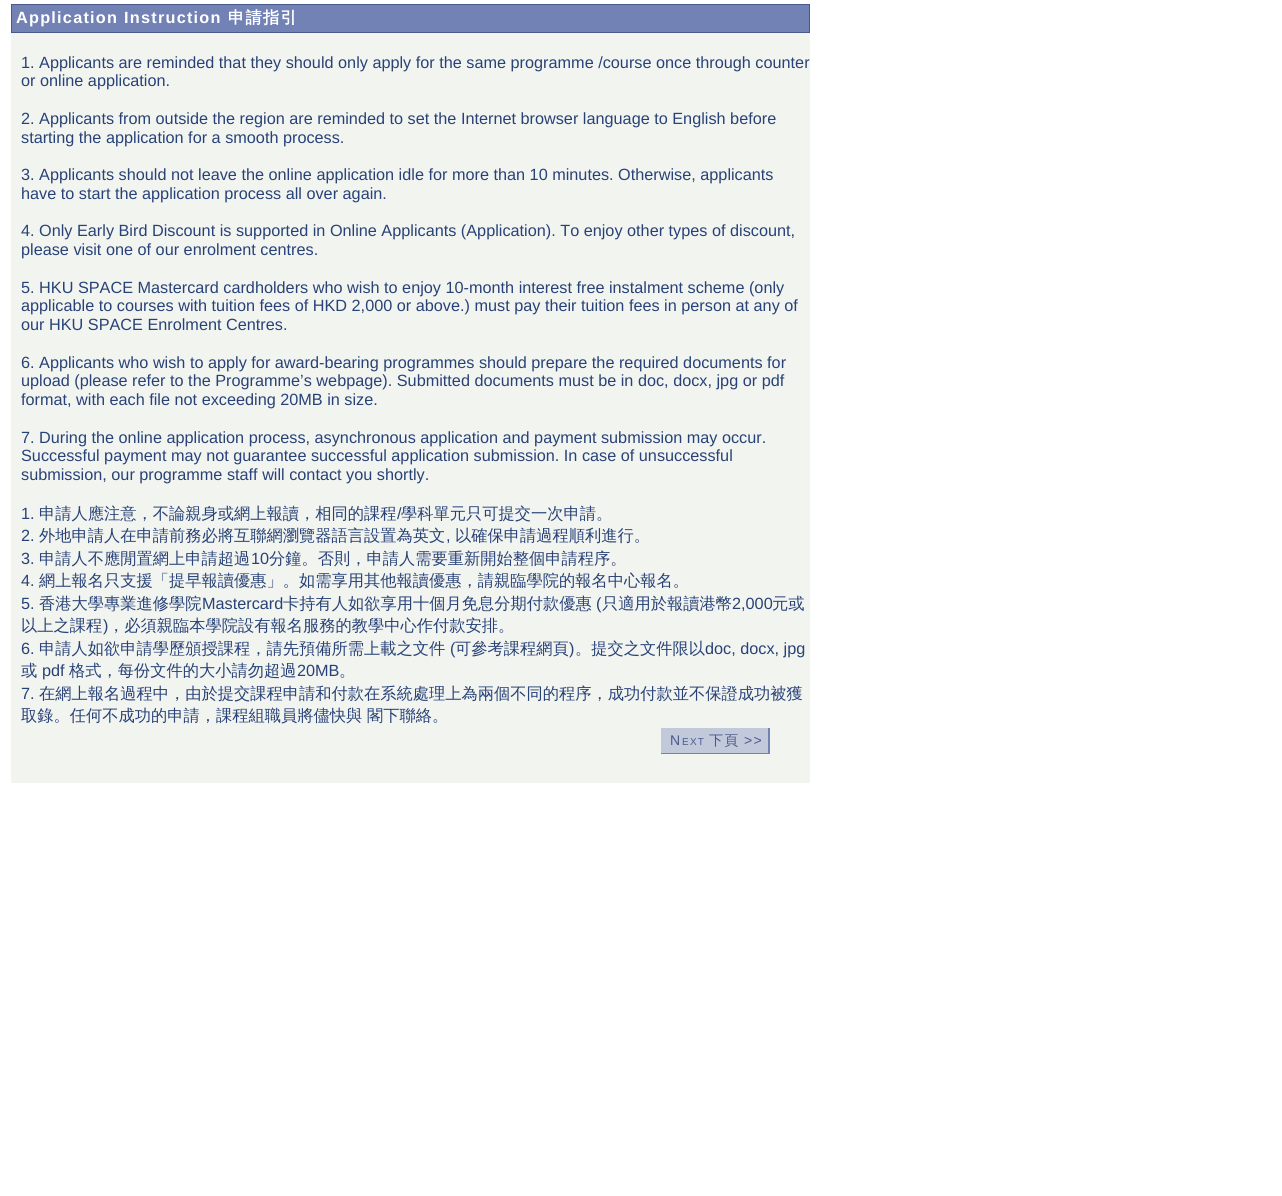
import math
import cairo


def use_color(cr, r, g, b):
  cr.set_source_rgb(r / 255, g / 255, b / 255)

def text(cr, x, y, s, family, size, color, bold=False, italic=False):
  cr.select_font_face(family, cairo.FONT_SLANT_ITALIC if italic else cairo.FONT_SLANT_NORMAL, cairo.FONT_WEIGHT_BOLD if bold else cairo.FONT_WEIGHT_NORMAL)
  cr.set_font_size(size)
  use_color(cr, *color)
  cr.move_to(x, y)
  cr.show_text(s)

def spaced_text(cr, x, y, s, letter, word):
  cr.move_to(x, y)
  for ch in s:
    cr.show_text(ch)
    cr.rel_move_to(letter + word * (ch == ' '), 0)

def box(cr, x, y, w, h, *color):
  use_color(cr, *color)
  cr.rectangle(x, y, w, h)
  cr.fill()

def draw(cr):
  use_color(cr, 255, 255, 255)
  cr.paint()
  use_color(cr, 115, 130, 181)
  cr.rectangle(11.5, 4.5, 798, 28)
  cr.fill_preserve()
  use_color(cr, 74, 89, 140)
  cr.set_line_width(1)
  cr.stroke()
  box(cr, 11, 33, 799, 750, 242, 244, 240)
  box(cr, 661, 728, 107, 25, 193, 201, 219)
  box(cr, 769, 728, 1, 26, 115, 130, 181)
  box(cr, 661, 753, 109, 1, 115, 130, 181)
  box(cr, 768, 728, 1, 26, 115, 130, 181)
  cr.select_font_face("Liberation Sans", cairo.FONT_SLANT_NORMAL, cairo.FONT_WEIGHT_BOLD)
  cr.set_font_size(16.25)
  use_color(cr, 255, 255, 255)
  spaced_text(cr, 16, 23, "Application Instruction", 1.25, 0)
  cr.select_font_face("WenQuanYi Zen Hei", cairo.FONT_SLANT_NORMAL, cairo.FONT_WEIGHT_BOLD)
  spaced_text(cr, 228, 23, "申請指引", 1.25, 0)
  text(cr, 21, 68, "1. Applicants are reminded that they should only apply for the same programme /course once through counter", "Liberation Sans", 16.25, (40, 66, 119))
  text(cr, 21, 86, "or online application.", "Liberation Sans", 16.25, (40, 66, 119))
  text(cr, 21, 124, "2. Applicants from outside the region are reminded to set the Internet browser language to English before", "Liberation Sans", 16.25, (40, 66, 119))
  text(cr, 21, 143, "starting the application for a smooth process.", "Liberation Sans", 16.25, (40, 66, 119))
  text(cr, 21, 180, "3. Applicants should not leave the online application idle for more than 10 minutes. Otherwise, applicants", "Liberation Sans", 16.25, (40, 66, 119))
  text(cr, 21, 199, "have to start the application process all over again.", "Liberation Sans", 16.25, (40, 66, 119))
  text(cr, 21, 236, "4. Only Early Bird Discount is supported in Online Applicants (Application). To enjoy other types of discount,", "Liberation Sans", 16.25, (40, 66, 119))
  text(cr, 21, 255, "please visit one of our enrolment centres.", "Liberation Sans", 16.25, (40, 66, 119))
  text(cr, 21, 293, "5. HKU SPACE Mastercard cardholders who wish to enjoy 10-month interest free instalment scheme (only", "Liberation Sans", 16.25, (40, 66, 119))
  text(cr, 21, 311, "applicable to courses with tuition fees of HKD 2,000 or above.) must pay their tuition fees in person at any of", "Liberation Sans", 16.25, (40, 66, 119))
  text(cr, 21, 330, "our HKU SPACE Enrolment Centres.", "Liberation Sans", 16.25, (40, 66, 119))
  text(cr, 21, 368, "6. Applicants who wish to apply for award-bearing programmes should prepare the required documents for", "Liberation Sans", 16.25, (40, 66, 119))
  text(cr, 21, 386, "upload (please refer to the Programme’s webpage). Submitted documents must be in doc, docx, jpg or pdf", "Liberation Sans", 16.25, (40, 66, 119))
  text(cr, 21, 405, "format, with each file not exceeding 20MB in size.", "Liberation Sans", 16.25, (40, 66, 119))
  text(cr, 21, 443, "7. During the online application process, asynchronous application and payment submission may occur.", "Liberation Sans", 16.25, (40, 66, 119))
  text(cr, 21, 461, "Successful payment may not guarantee successful application submission. In case of unsuccessful", "Liberation Sans", 16.25, (40, 66, 119))
  text(cr, 21, 480, "submission, our programme staff will contact you shortly.", "Liberation Sans", 16.25, (40, 66, 119))
  text(cr, 21, 519, "1.", "Liberation Sans", 16.25, (40, 66, 119))
  text(cr, 39, 519, "申請人應注意，不論親身或網上報讀，相同的課程", "WenQuanYi Zen Hei Medium", 16.25, (40, 66, 119))
  text(cr, 397, 519, "/", "Liberation Sans", 16.25, (40, 66, 119))
  text(cr, 401, 519, "學科單元只可提交一次申請。", "WenQuanYi Zen Hei Medium", 16.25, (40, 66, 119))
  text(cr, 21, 541, "2.", "Liberation Sans", 16.25, (40, 66, 119))
  text(cr, 39, 541, "外地申請人在申請前務必將互聯網瀏覽器語言設置為英文", "WenQuanYi Zen Hei Medium", 16.25, (40, 66, 119))
  text(cr, 455, 541, "以確保申請過程順利進行。", "WenQuanYi Zen Hei Medium", 16.25, (40, 66, 119))
  text(cr, 446, 541, ",", "Liberation Sans", 16.25, (40, 66, 119))
  text(cr, 21, 564, "3.", "Liberation Sans", 16.25, (40, 66, 119))
  text(cr, 39, 564, "申請人不應閒置網上申請超過", "WenQuanYi Zen Hei Medium", 16.25, (40, 66, 119))
  text(cr, 251, 564, "10", "Liberation Sans", 16.25, (40, 66, 119))
  text(cr, 269, 564, "分鐘。否則，申請人需要重新開始整個申請程序。", "WenQuanYi Zen Hei Medium", 16.25, (40, 66, 119))
  text(cr, 21, 586, "4.", "Liberation Sans", 16.25, (40, 66, 119))
  text(cr, 39, 586, "網上報名只支援「提早報讀優惠」。如需享用其他報讀優惠，請親臨學院的報名中心報名。", "WenQuanYi Zen Hei Medium", 16.25, (40, 66, 119))
  text(cr, 21, 609, "5.", "Liberation Sans", 16.25, (40, 66, 119))
  text(cr, 39, 609, "香港大學專業進修學院", "WenQuanYi Zen Hei Medium", 16.25, (40, 66, 119))
  text(cr, 202, 609, "Mastercard", "Liberation Sans", 16.25, (40, 66, 119))
  text(cr, 283, 609, "卡持有人如欲享用十個月免息分期付款優惠", "WenQuanYi Zen Hei Medium", 16.25, (40, 66, 119))
  text(cr, 596, 609, "(", "Liberation Sans", 16.25, (40, 66, 119))
  text(cr, 602, 609, "只適用於報讀港幣", "WenQuanYi Zen Hei Medium", 16.25, (40, 66, 119))
  text(cr, 732, 609, "2,000", "Liberation Sans", 16.25, (40, 66, 119))
  text(cr, 772, 609, "元或", "WenQuanYi Zen Hei Medium", 16.25, (40, 66, 119))
  text(cr, 21, 631, "以上之課程", "WenQuanYi Zen Hei Medium", 16.25, (40, 66, 119))
  text(cr, 103, 631, ")", "Liberation Sans", 16.25, (40, 66, 119))
  text(cr, 108, 631, "，必須親臨本學院設有報名服務的教學中心作付款安排。", "WenQuanYi Zen Hei Medium", 16.25, (40, 66, 119))
  text(cr, 21, 654, "6.", "Liberation Sans", 16.25, (40, 66, 119))
  text(cr, 39, 654, "申請人如欲申請學歷頒授課程，請先預備所需上載之文件", "WenQuanYi Zen Hei Medium", 16.25, (40, 66, 119))
  text(cr, 450, 654, "(", "Liberation Sans", 16.25, (40, 66, 119))
  text(cr, 455, 654, "可參考課程網頁", "WenQuanYi Zen Hei Medium", 16.25, (40, 66, 119))
  text(cr, 569, 654, ")", "Liberation Sans", 16.25, (40, 66, 119))
  text(cr, 575, 654, "。提交之文件限以", "WenQuanYi Zen Hei Medium", 16.25, (40, 66, 119))
  text(cr, 705, 654, "doc, docx, jpg", "Liberation Sans", 16.25, (40, 66, 119))
  text(cr, 21, 676, "或", "WenQuanYi Zen Hei Medium", 16.25, (40, 66, 119))
  text(cr, 42, 676, "pdf", "Liberation Sans", 16.25, (40, 66, 119))
  text(cr, 69, 676, "格式，每份文件的大小請勿超過", "WenQuanYi Zen Hei Medium", 16.25, (40, 66, 119))
  text(cr, 297, 676, "20MB", "Liberation Sans", 16.25, (40, 66, 119))
  text(cr, 339, 676, "。", "WenQuanYi Zen Hei Medium", 16.25, (40, 66, 119))
  text(cr, 21, 699, "7.", "Liberation Sans", 16.25, (40, 66, 119))
  text(cr, 39, 699, "在網上報名過程中，由於提交課程申請和付款在系統處理上為兩個不同的程序，成功付款並不保證成功被獲", "WenQuanYi Zen Hei Medium", 16.25, (40, 66, 119))
  text(cr, 21, 721, "取錄。任何不成功的申請，課程組職員將儘快與 閣下聯絡。", "WenQuanYi Zen Hei Medium", 16.25, (40, 66, 119))
  cr.select_font_face("Liberation Sans")
  cr.set_font_size(14)
  use_color(cr, 74, 89, 140)
  spaced_text(cr, 670, 745, "N", 1.25, 0)
  cr.set_font_size(10)
  spaced_text(cr, 682, 745, "EXT", 1.25, 0)
  cr.select_font_face("WenQuanYi Zen Hei Medium")
  cr.set_font_size(14)
  spaced_text(cr, 709, 745, "下頁", 1.25, 0)
  cr.select_font_face("Liberation Sans")
  spaced_text(cr, 744, 745, ">>", 1.25, 0)


surface = cairo.ImageSurface(cairo.FORMAT_RGB24, 1282, 1196)
cr = cairo.Context(surface)
options = cairo.FontOptions()
options.set_hint_metrics(cairo.HINT_METRICS_OFF)
options.set_hint_style(cairo.HINT_STYLE_NONE)
cr.set_font_options(options)
cr.set_miter_limit(4)
draw(cr)
surface.write_to_png("out.png")
